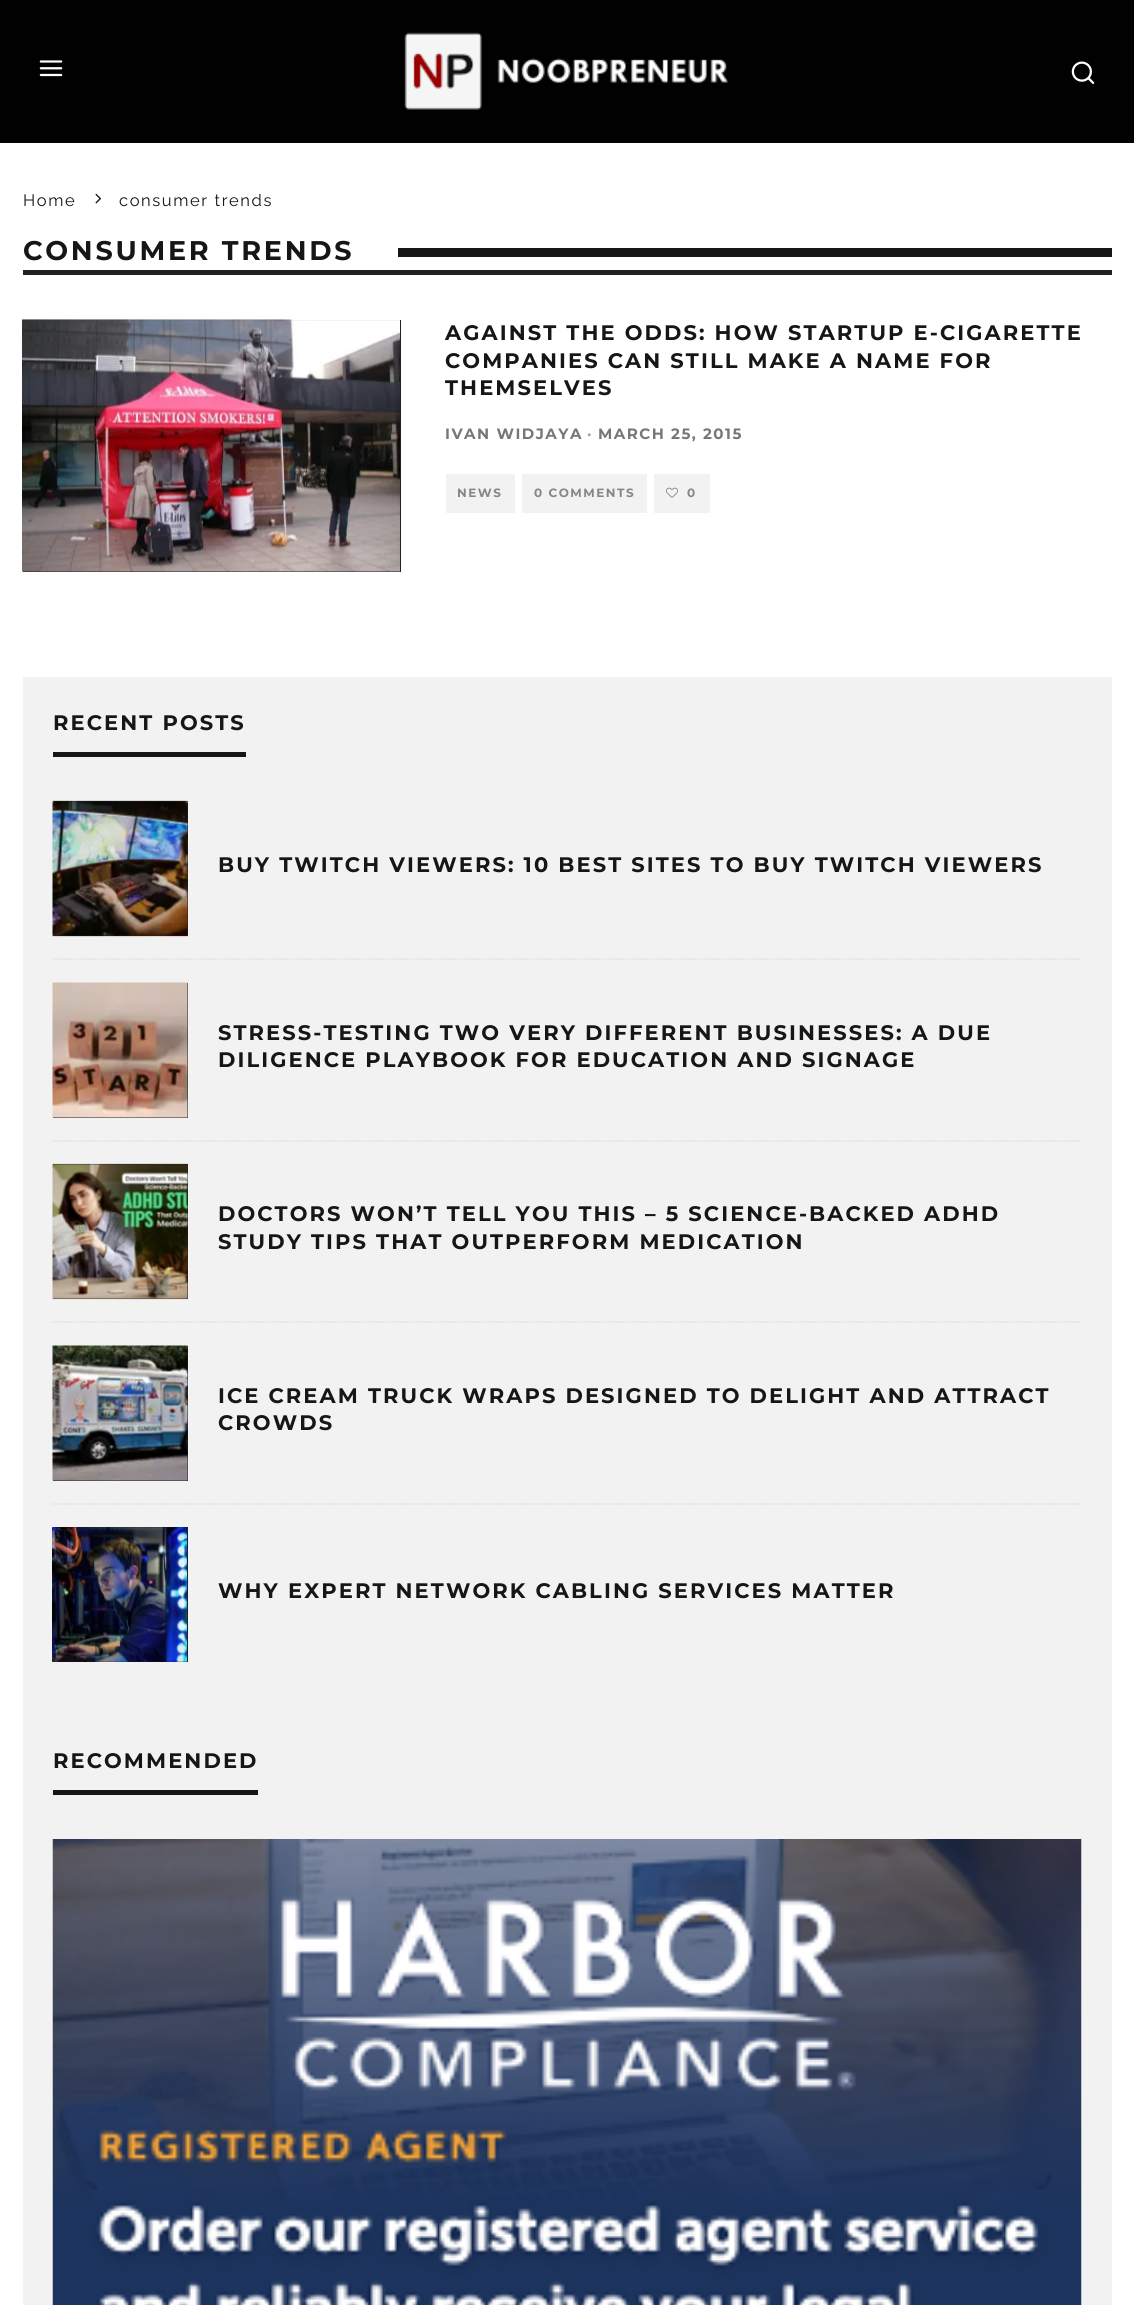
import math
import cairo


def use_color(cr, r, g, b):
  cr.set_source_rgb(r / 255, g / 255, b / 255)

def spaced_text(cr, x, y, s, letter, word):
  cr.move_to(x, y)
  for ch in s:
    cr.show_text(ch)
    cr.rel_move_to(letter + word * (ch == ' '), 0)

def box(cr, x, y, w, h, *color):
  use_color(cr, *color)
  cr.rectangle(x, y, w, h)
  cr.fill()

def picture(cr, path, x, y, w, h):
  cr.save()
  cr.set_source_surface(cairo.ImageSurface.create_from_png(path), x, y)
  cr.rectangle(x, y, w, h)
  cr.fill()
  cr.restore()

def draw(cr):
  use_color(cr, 255, 255, 255)
  cr.paint()
  box(cr, 0, 0, 1134, 143, 1, 1, 1)
  picture(cr, "img_01.png", 39, 60, 24, 17)
  picture(cr, "img_02.png", 404, 32, 324, 78)
  picture(cr, "img_03.png", 1071, 61, 24, 23)
  picture(cr, "img_04.png", 95, 193, 6, 11)
  box(cr, 23, 270, 1089, 5, 34, 34, 34)
  box(cr, 398, 248, 714, 9, 22, 22, 22)
  box(cr, 23, 320, 378, 252, 34, 34, 34)
  picture(cr, "img_05.png", 22, 319, 378, 253)
  box(cr, 446, 474, 69, 39, 242, 242, 242)
  box(cr, 522, 474, 125, 39, 242, 242, 242)
  box(cr, 654, 474, 56, 39, 242, 242, 242)
  picture(cr, "img_06.png", 666, 487, 12, 11)
  box(cr, 23, 677, 1089, 1628, 242, 242, 242)
  box(cr, 53, 752, 193, 5, 22, 22, 22)
  cr.new_path()
  cr.move_to(52.5, 959)
  cr.line_to(1081.5, 959)
  use_color(cr, 221, 221, 221)
  cr.set_line_width(1.5)
  cr.set_dash([1.5, 1.5])
  cr.stroke()
  box(cr, 53, 801, 135, 135, 34, 34, 34)
  picture(cr, "img_07.png", 52, 800, 136, 137)
  cr.new_path()
  cr.move_to(52.5, 1141)
  cr.line_to(1081.5, 1141)
  use_color(cr, 221, 221, 221)
  cr.stroke()
  box(cr, 53, 983, 135, 135, 34, 34, 34)
  picture(cr, "img_08.png", 52, 982, 136, 136)
  cr.new_path()
  cr.move_to(52.5, 1322)
  cr.line_to(1081.5, 1322)
  use_color(cr, 221, 221, 221)
  cr.stroke()
  box(cr, 53, 1164, 135, 135, 34, 34, 34)
  picture(cr, "img_09.png", 52, 1163, 136, 137)
  cr.new_path()
  cr.move_to(52.5, 1504)
  cr.line_to(1081.5, 1504)
  use_color(cr, 221, 221, 221)
  cr.stroke()
  box(cr, 53, 1346, 135, 135, 34, 34, 34)
  picture(cr, "img_10.png", 52, 1345, 136, 136)
  box(cr, 53, 1527, 135, 135, 34, 34, 34)
  picture(cr, "img_11.png", 52, 1527, 135, 135)
  box(cr, 53, 1790, 205, 5, 22, 22, 22)
  picture(cr, "img_12.png", 52, 1839, 1030, 466)
  cr.select_font_face("Raleway")
  cr.set_font_size(16.5)
  spaced_text(cr, 23, 206, "Home", 1.6, 0)
  spaced_text(cr, 119, 206, "consumer trends", 1.6, 0)
  cr.select_font_face("Montserrat", cairo.FONT_SLANT_NORMAL, cairo.FONT_WEIGHT_BOLD)
  cr.set_font_size(27)
  spaced_text(cr, 23, 260, "CONSUMER TRENDS", 2.75, 0)
  cr.set_font_size(21)
  spaced_text(cr, 445, 340, "AGAINST THE ODDS: HOW STARTUP E-CIGARETTE", 2.1, 0)
  spaced_text(cr, 445, 368, "COMPANIES CAN STILL MAKE A NAME FOR", 2.1, 0)
  spaced_text(cr, 445, 395, "THEMSELVES", 2.1, 0)
  cr.set_font_size(15)
  use_color(cr, 119, 119, 119)
  spaced_text(cr, 445, 439, "IVAN WIDJAYA", 1.5, 0)
  use_color(cr, 160, 160, 160)
  spaced_text(cr, 587, 439, "·", 1.5, 0)
  use_color(cr, 119, 119, 119)
  spaced_text(cr, 598, 439, "MARCH 25, 2015", 1.5, 0)
  cr.set_font_size(12)
  use_color(cr, 134, 134, 134)
  spaced_text(cr, 457, 497, "NEWS", 1.5, 0)
  spaced_text(cr, 534, 497, "0 COMMENTS", 1.5, 0)
  spaced_text(cr, 687, 497, "0", 1.5, 0)
  cr.set_font_size(21)
  use_color(cr, 22, 22, 22)
  spaced_text(cr, 53, 730, "RECENT POSTS", 2.1, 0)
  spaced_text(cr, 218, 872, "BUY TWITCH VIEWERS: 10 BEST SITES TO BUY TWITCH VIEWERS", 2.1, 0)
  spaced_text(cr, 218, 1040, "STRESS-TESTING TWO VERY DIFFERENT BUSINESSES: A DUE", 2.1, 0)
  spaced_text(cr, 218, 1067, "DILIGENCE PLAYBOOK FOR EDUCATION AND SIGNAGE", 2.1, 0)
  spaced_text(cr, 218, 1221, "DOCTORS WON’T TELL YOU THIS – 5 SCIENCE-BACKED ADHD", 2.1, 0)
  spaced_text(cr, 218, 1249, "STUDY TIPS THAT OUTPERFORM MEDICATION", 2.1, 0)
  spaced_text(cr, 218, 1403, "ICE CREAM TRUCK WRAPS DESIGNED TO DELIGHT AND ATTRACT", 2.1, 0)
  spaced_text(cr, 218, 1430, "CROWDS", 2.1, 0)
  spaced_text(cr, 218, 1598, "WHY EXPERT NETWORK CABLING SERVICES MATTER", 2.1, 0)
  spaced_text(cr, 53, 1768, "RECOMMENDED", 2.1, 0)


surface = cairo.ImageSurface(cairo.FORMAT_RGB24, 1134, 2305)
cr = cairo.Context(surface)
options = cairo.FontOptions()
options.set_hint_metrics(cairo.HINT_METRICS_OFF)
options.set_hint_style(cairo.HINT_STYLE_NONE)
cr.set_font_options(options)
cr.set_miter_limit(4)
draw(cr)
surface.write_to_png("out.png")
